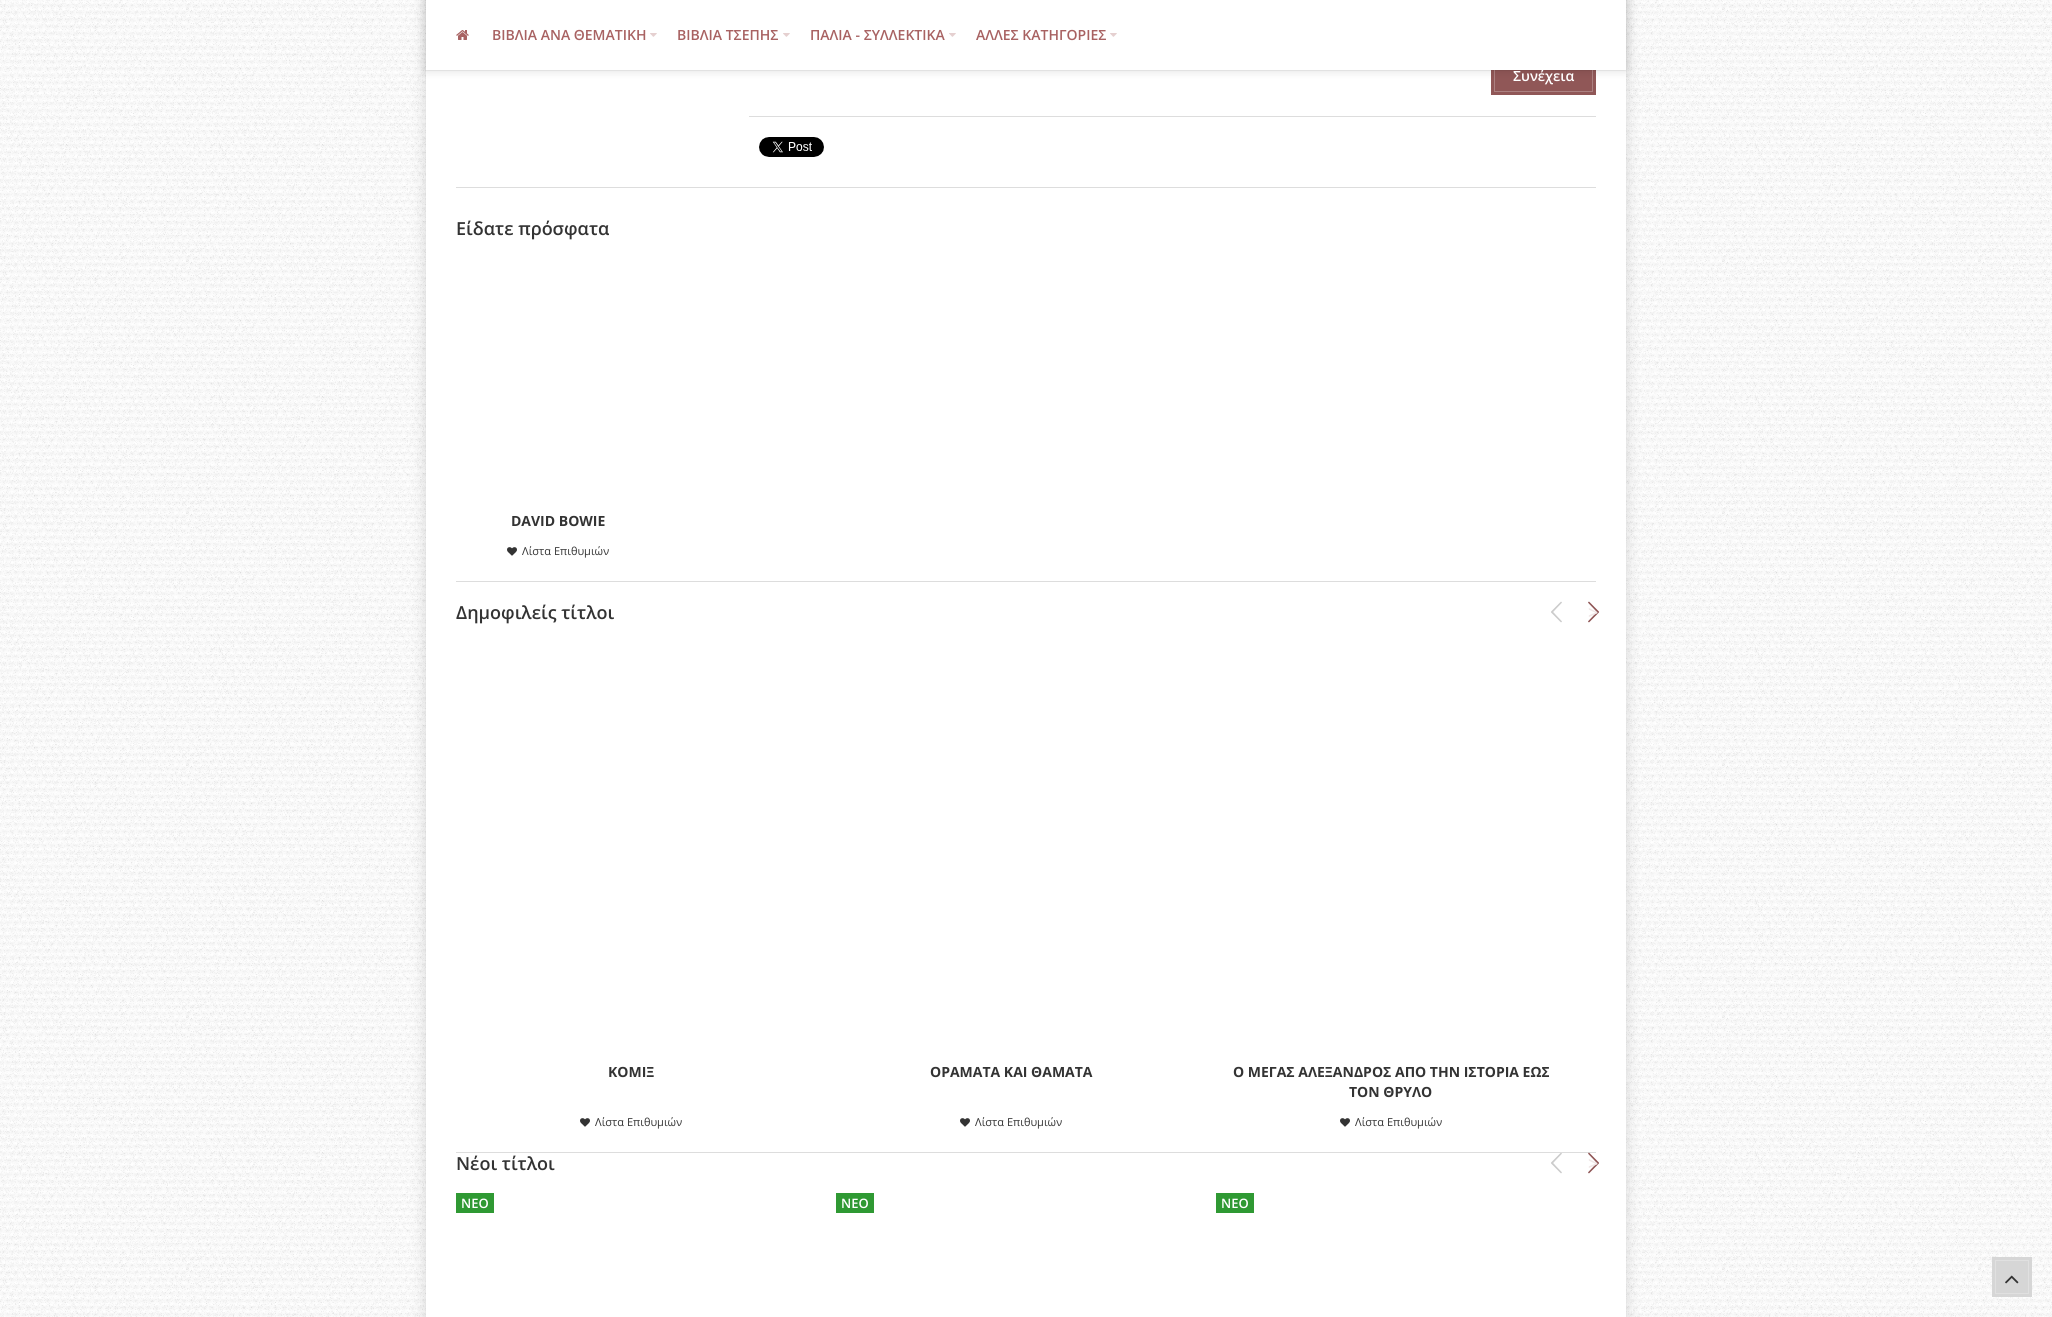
import math
import cairo


def use_color(cr, r, g, b):
  cr.set_source_rgb(r / 255, g / 255, b / 255)

def text(cr, x, y, s, family, size, color, bold=False, italic=False):
  cr.select_font_face(family, cairo.FONT_SLANT_ITALIC if italic else cairo.FONT_SLANT_NORMAL, cairo.FONT_WEIGHT_BOLD if bold else cairo.FONT_WEIGHT_NORMAL)
  cr.set_font_size(size)
  use_color(cr, *color)
  cr.move_to(x, y)
  cr.show_text(s)

def box(cr, x, y, w, h, *color):
  use_color(cr, *color)
  cr.rectangle(x, y, w, h)
  cr.fill()

def round_rect(cr, x, y, w, h, r):
  cr.new_sub_path()
  for i, (u, v) in enumerate([(x + w - r, y + h - r), (x + r, y + h - r), (x + r, y + r), (x + w - r, y + r)]):
    cr.arc(u, v, r, i * math.pi / 2, (i + 1) * math.pi / 2)
  cr.close_path()

def shadow(cr, x, y, w, h, r, blur, alpha):
  cr.push_group_with_content(cairo.CONTENT_ALPHA)
  cr.set_operator(cairo.OPERATOR_SOURCE)
  for i in range(15, -16, -2):
    e = blur * i / 6
    if min(w, h) + 2 * e > 0:
      cr.set_source_rgba(0, 0, 0, alpha * math.erfc((i - 1) / 8.5) / 2)
      round_rect(cr, x - e, y - e, w + 2 * e, h + 2 * e, max(0, min(r + e + blur * .6, min(w, h) / 2 + e)))
      cr.fill()
  cr.mask(cr.pop_group())

def picture(cr, path, x, y, w, h):
  cr.save()
  cr.set_source_surface(cairo.ImageSurface.create_from_png(path), x, y)
  cr.rectangle(x, y, w, h)
  cr.fill()
  cr.restore()

def draw(cr):
  use_color(cr, 255, 255, 255)
  cr.paint()
  picture(cr, "img_01.png", 0, 0, 2052, 1317)
  use_color(cr, 0, 0, 0)
  shadow(cr, 426, -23, 1200, 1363, 0, 7.5, 0.15)
  box(cr, 426, 70, 1200, 1247, 255, 255, 255)
  box(cr, 1491, 70, 105, 25, 144, 87, 87)
  cr.rectangle(1494.5, 60.5, 98, 31)
  use_color(cr, 172, 129, 129)
  cr.set_line_width(1)
  cr.stroke()
  use_color(cr, 0, 0, 0)
  shadow(cr, 426, 0, 1200, 70, 0, 5, 0.15)
  cr.set_source_rgba(0, 0, 0, 0.05)
  cr.rectangle(426, 70, 1200, 1)
  cr.fill()
  box(cr, 426, 0, 1200, 70, 255, 255, 255)
  picture(cr, "img_02.png", 456, 30, 13, 10)
  picture(cr, "img_03.png", 650, 33, 7, 4)
  picture(cr, "img_03.png", 783, 33, 7, 4)
  picture(cr, "img_03.png", 949, 33, 7, 4)
  picture(cr, "img_03.png", 1110, 33, 7, 4)
  box(cr, 749, 116, 847, 1, 221, 221, 221)
  picture(cr, "img_04.png", 759, 137, 65, 20)
  box(cr, 456, 187, 1140, 1, 221, 221, 221)
  picture(cr, "img_05.png", 507, 547, 10, 9)
  box(cr, 456, 581, 1140, 1, 221, 221, 221)
  picture(cr, "img_06.png", 1551, 601, 11, 22)
  picture(cr, "img_07.png", 1588, 601, 11, 22)
  picture(cr, "img_05.png", 580, 1118, 10, 9)
  picture(cr, "img_05.png", 960, 1118, 10, 9)
  picture(cr, "img_05.png", 1340, 1118, 10, 9)
  box(cr, 456, 1152, 1140, 1, 221, 221, 221)
  picture(cr, "img_08.png", 1551, 1153, 11, 21)
  picture(cr, "img_09.png", 1588, 1152, 11, 22)
  box(cr, 456, 1193, 38, 20, 47, 153, 51)
  box(cr, 836, 1193, 38, 20, 47, 153, 51)
  box(cr, 1216, 1193, 38, 20, 47, 153, 51)
  box(cr, 1992, 1257, 40, 40, 214, 214, 214)
  cr.rectangle(1995.5, 1260.5, 33, 33)
  use_color(cr, 224, 224, 224)
  cr.stroke()
  picture(cr, "img_10.png", 2005, 1275, 14, 9)
  text(cr, 492, 40, "ΒΙΒΛΙΑ ΑΝΑ ΘΕΜΑΤΙΚΗ", "Open Sans SemiBold", 14, (168, 98, 98))
  text(cr, 677, 40, "ΒΙΒΛΙΑ ΤΣΕΠΗΣ", "Open Sans SemiBold", 14, (168, 98, 98))
  text(cr, 810, 40, "ΠΑΛΙΑ - ΣΥΛΛΕΚΤΙΚΑ", "Open Sans SemiBold", 14, (168, 98, 98))
  text(cr, 976, 40, "ΑΛΛΕΣ ΚΑΤΗΓΟΡΙΕΣ", "Open Sans SemiBold", 14, (168, 98, 98))
  text(cr, 1513, 81, "Συνέχεια", "Open Sans SemiBold", 14, (255, 255, 255))
  text(cr, 456, 235, "Είδατε πρόσφατα", "Open Sans SemiBold", 18, (51, 51, 51))
  text(cr, 511, 526, "DAVID BOWIE", "Open Sans", 14, (51, 51, 51), bold=True)
  text(cr, 522, 555, "Λίστα Επιθυμιών", "Open Sans", 11, (51, 51, 51))
  text(cr, 456, 619, "Δημοφιλείς τίτλοι", "Open Sans SemiBold", 18, (51, 51, 51))
  text(cr, 1588, 619, ">", "Open Sans SemiBold", 18, (240, 232, 232))
  text(cr, 608, 1077, "ΚΟΜΙΞ", "Open Sans", 14, (51, 51, 51), bold=True)
  text(cr, 595, 1126, "Λίστα Επιθυμιών", "Open Sans", 11, (51, 51, 51))
  text(cr, 930, 1077, "ΟΡΑΜΑΤΑ ΚΑΙ ΘΑΜΑΤΑ", "Open Sans", 14, (51, 51, 51), bold=True)
  text(cr, 975, 1126, "Λίστα Επιθυμιών", "Open Sans", 11, (51, 51, 51))
  text(cr, 1233, 1077, "Ο ΜΕΓΑΣ ΑΛΕΞΑΝΔΡΟΣ ΑΠΟ ΤΗΝ ΙΣΤΟΡΙΑ ΕΩΣ", "Open Sans", 14, (51, 51, 51), bold=True)
  text(cr, 1349, 1097, "ΤΟΝ ΘΡΥΛΟ", "Open Sans", 14, (51, 51, 51), bold=True)
  text(cr, 1355, 1126, "Λίστα Επιθυμιών", "Open Sans", 11, (51, 51, 51))
  text(cr, 456, 1170, "Νέοι τίτλοι", "Open Sans SemiBold", 18, (51, 51, 51))
  text(cr, 1588, 1170, ">", "Open Sans SemiBold", 18, (240, 232, 232))
  text(cr, 461, 1208, "ΝΕΟ", "Open Sans SemiBold", 13, (255, 255, 255))
  text(cr, 841, 1208, "ΝΕΟ", "Open Sans SemiBold", 13, (255, 255, 255))
  text(cr, 1221, 1208, "ΝΕΟ", "Open Sans SemiBold", 13, (255, 255, 255))


surface = cairo.ImageSurface(cairo.FORMAT_RGB24, 2052, 1317)
cr = cairo.Context(surface)
options = cairo.FontOptions()
options.set_hint_metrics(cairo.HINT_METRICS_OFF)
options.set_hint_style(cairo.HINT_STYLE_NONE)
cr.set_font_options(options)
cr.set_miter_limit(4)
draw(cr)
surface.write_to_png("out.png")
